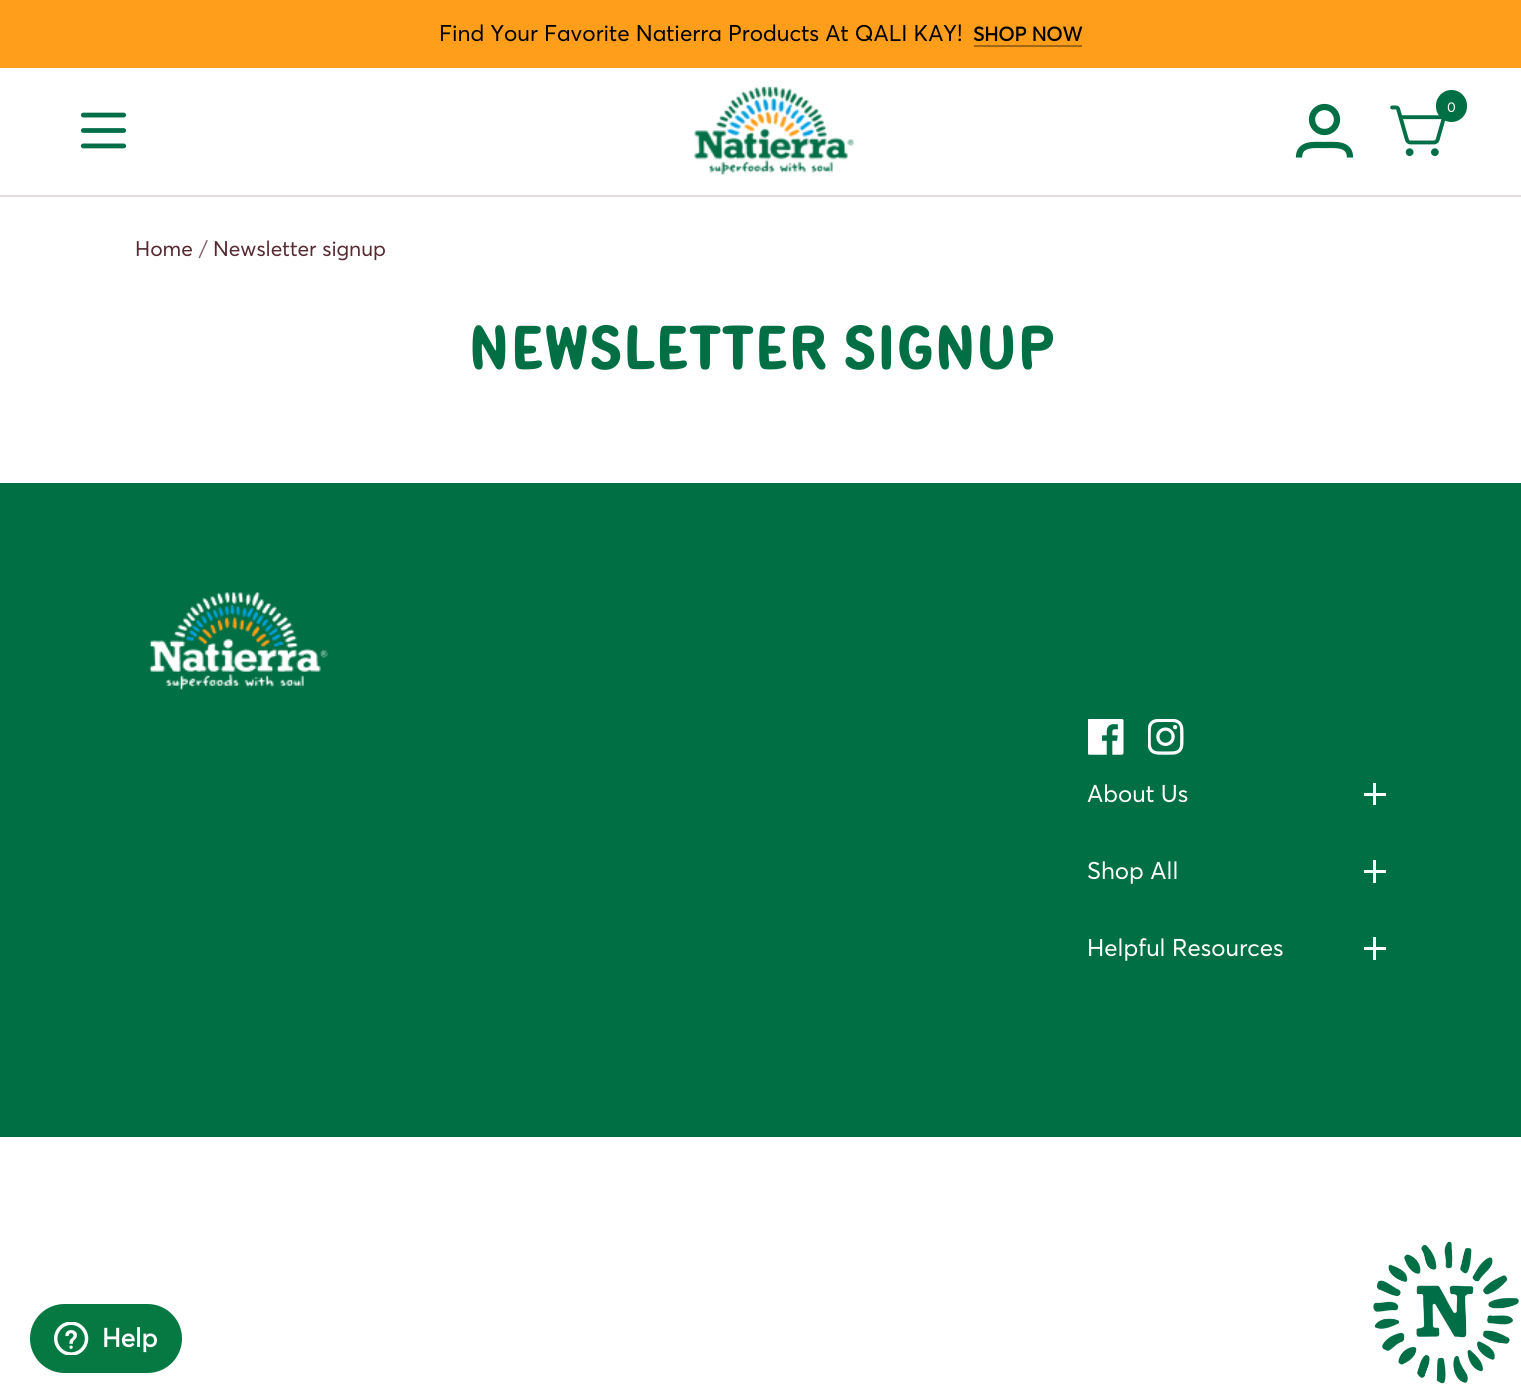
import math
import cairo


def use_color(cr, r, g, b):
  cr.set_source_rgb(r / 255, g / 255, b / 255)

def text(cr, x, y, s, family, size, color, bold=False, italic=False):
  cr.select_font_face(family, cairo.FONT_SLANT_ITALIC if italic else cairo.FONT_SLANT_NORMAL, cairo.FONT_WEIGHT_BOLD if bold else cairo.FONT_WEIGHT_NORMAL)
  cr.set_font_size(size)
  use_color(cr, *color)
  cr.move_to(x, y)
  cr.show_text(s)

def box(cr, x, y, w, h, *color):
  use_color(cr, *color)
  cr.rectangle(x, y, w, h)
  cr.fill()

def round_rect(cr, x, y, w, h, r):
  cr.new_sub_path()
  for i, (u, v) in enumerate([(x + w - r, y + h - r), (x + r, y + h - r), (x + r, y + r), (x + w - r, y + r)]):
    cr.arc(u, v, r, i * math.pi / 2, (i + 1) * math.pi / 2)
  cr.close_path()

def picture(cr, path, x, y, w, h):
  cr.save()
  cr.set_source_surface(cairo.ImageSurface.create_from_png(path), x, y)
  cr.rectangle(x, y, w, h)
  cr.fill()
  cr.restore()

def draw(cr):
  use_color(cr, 255, 255, 255)
  cr.paint()
  box(cr, 0, 0, 1521, 68, 255, 158, 27)
  box(cr, 974, 45, 108, 2, 166, 103, 18)
  box(cr, 0, 195, 1521, 2, 230, 223, 224)
  picture(cr, "img_01.png", 694, 85, 160, 91)
  cr.arc(1324.5, 119.5, 12.5, 0, 2 * math.pi)
  use_color(cr, 0, 111, 68)
  cr.set_line_width(6.3)
  cr.stroke()
  cr.new_path()
  cr.move_to(1299, 157.5)
  cr.curve_to(1299, 143, 1314.5, 145, 1324.5, 145)
  cr.curve_to(1334.5, 145, 1350, 143, 1350, 157.5)
  cr.stroke()
  picture(cr, "img_02.png", 1390, 105, 56, 52)
  round_rect(cr, 1436, 90, 31, 32, 15.5)
  cr.fill()
  picture(cr, "img_03.png", 80, 112, 47, 37)
  box(cr, 0, 483, 1521, 654, 0, 111, 68)
  picture(cr, "img_04.png", 149, 592, 179, 98)
  picture(cr, "img_05.png", 1088, 719, 36, 36)
  picture(cr, "img_06.png", 1148, 719, 36, 36)
  box(cr, 1373, 783, 3, 22, 255, 255, 255)
  box(cr, 1364, 793, 22, 3, 255, 255, 255)
  box(cr, 1373, 860, 3, 23, 255, 255, 255)
  box(cr, 1364, 870, 22, 3, 255, 255, 255)
  box(cr, 1373, 937, 3, 23, 255, 255, 255)
  box(cr, 1364, 947, 22, 3, 255, 255, 255)
  use_color(cr, 6, 120, 65)
  round_rect(cr, 30, 1304, 152, 69, 34.5)
  cr.fill()
  picture(cr, "img_07.png", 54, 1322, 35, 33)
  picture(cr, "img_08.png", 1373, 1241, 146, 143)
  text(cr, 439, 41, "Find Your Favorite Natierra Products At QALI KAY!", "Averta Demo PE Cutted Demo", 22.5, (0, 0, 0))
  text(cr, 973, 41, "SHOP NOW", "Averta Demo PE Cutted Demo", 19.5, (0, 0, 0), bold=True)
  text(cr, 1447, 112, "0", "Averta Demo PE Cutted Demo", 14, (255, 255, 255))
  text(cr, 135, 256, "Home", "Averta Demo PE Cutted Demo", 21, (87, 41, 50))
  text(cr, 199, 256, "/", "Averta Demo PE Cutted Demo", 21, (137, 105, 112))
  text(cr, 213, 256, "Newsletter signup", "Averta Demo PE Cutted Demo", 21, (87, 41, 50))
  text(cr, 468, 369, "NEWSLETTER SIGNUP", "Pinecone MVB", 60, (0, 111, 68))
  text(cr, 1087, 802, "About Us", "Averta Demo PE Cutted Demo", 24, (255, 255, 255))
  text(cr, 1087, 879, "Shop All", "Averta Demo PE Cutted Demo", 24, (255, 255, 255))
  text(cr, 1087, 956, "Helpful Resources", "Averta Demo PE Cutted Demo", 24, (255, 255, 255))
  text(cr, 102, 1347, "Help", "Averta Demo PE Cutted Demo", 26, (255, 255, 255), bold=True)


surface = cairo.ImageSurface(cairo.FORMAT_RGB24, 1521, 1387)
cr = cairo.Context(surface)
options = cairo.FontOptions()
options.set_hint_metrics(cairo.HINT_METRICS_OFF)
options.set_hint_style(cairo.HINT_STYLE_NONE)
cr.set_font_options(options)
cr.set_miter_limit(4)
draw(cr)
surface.write_to_png("out.png")
